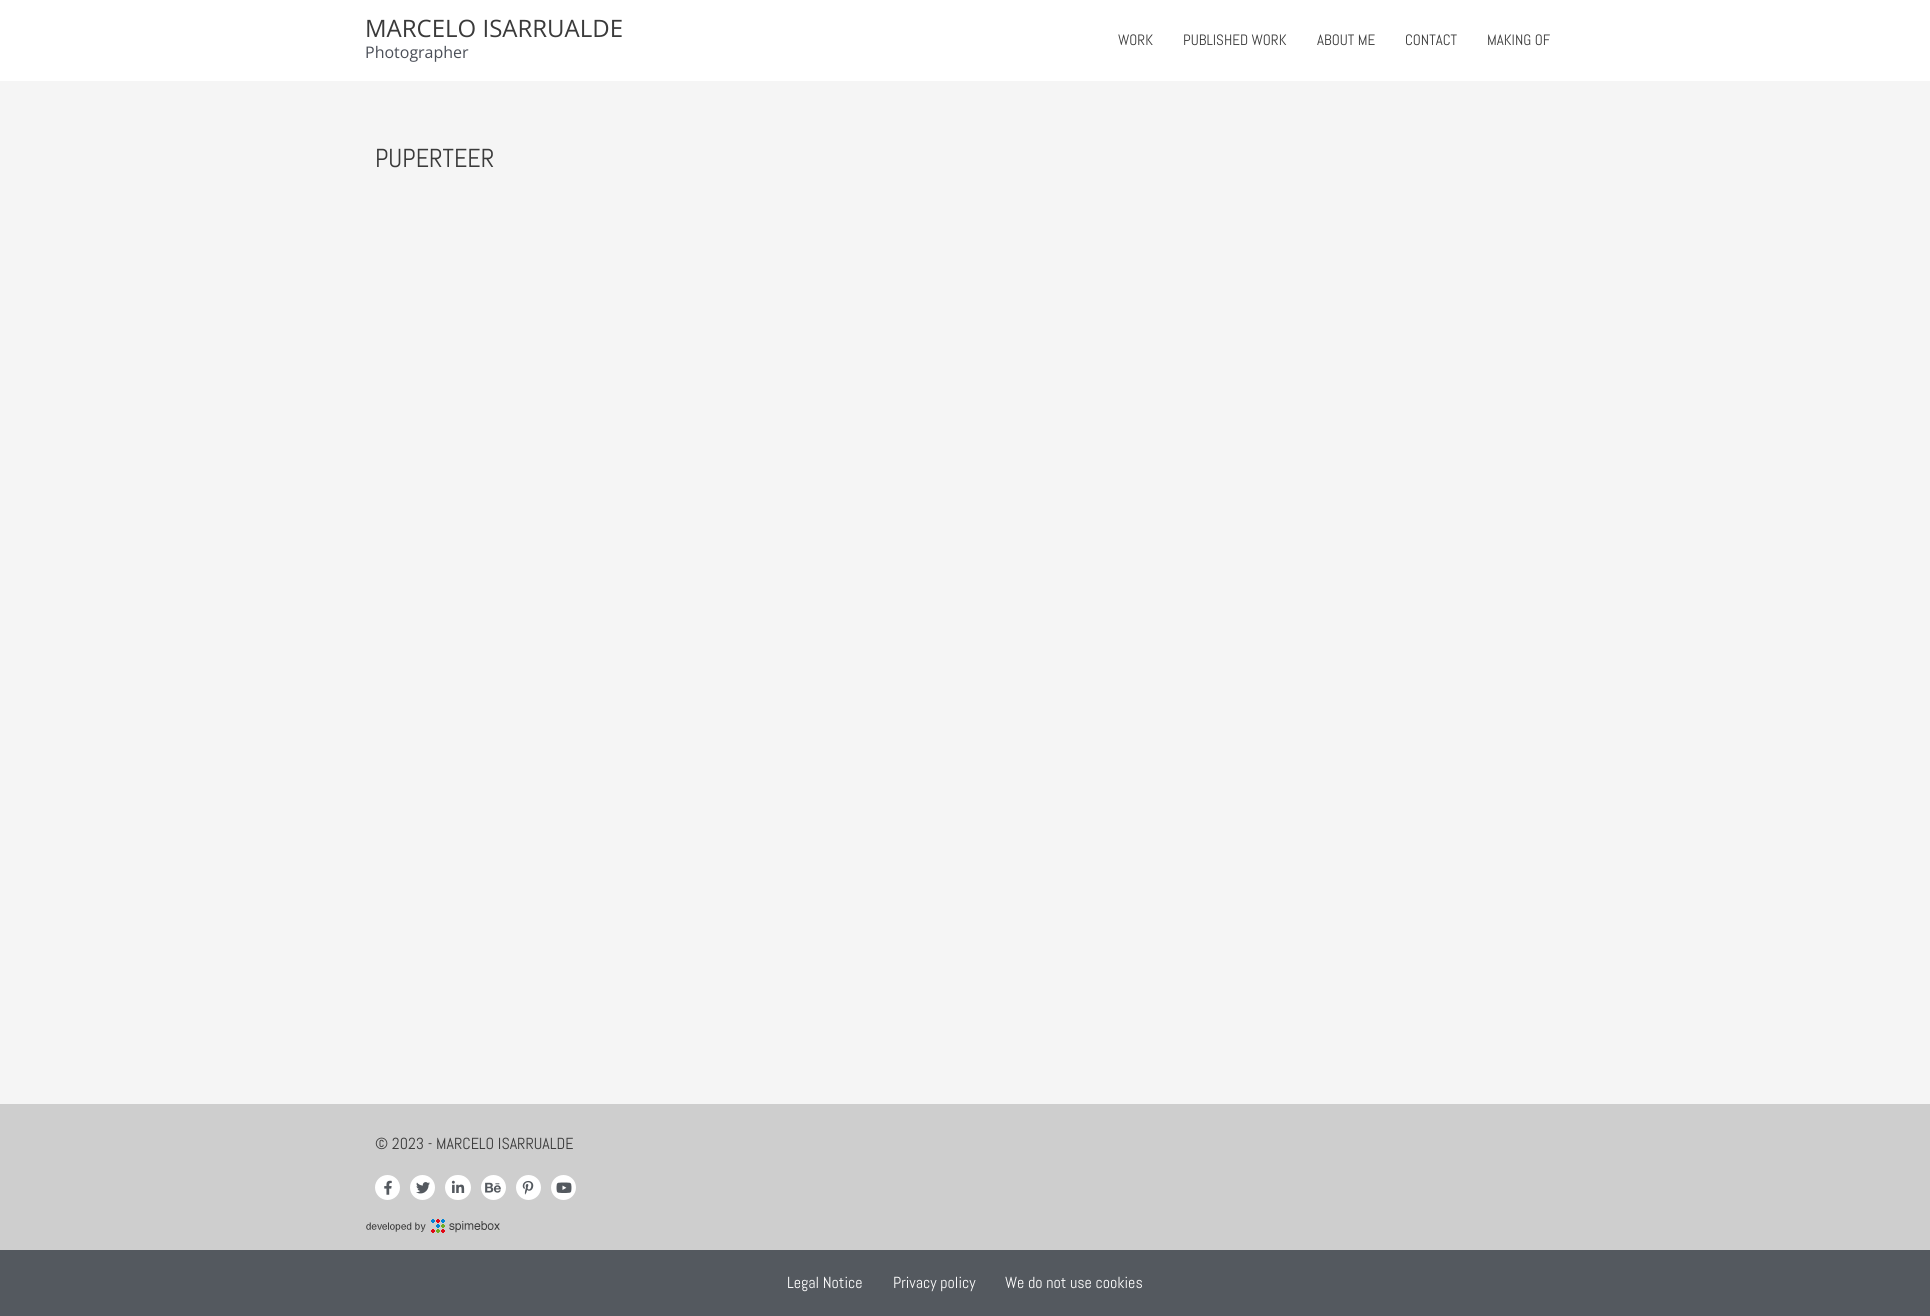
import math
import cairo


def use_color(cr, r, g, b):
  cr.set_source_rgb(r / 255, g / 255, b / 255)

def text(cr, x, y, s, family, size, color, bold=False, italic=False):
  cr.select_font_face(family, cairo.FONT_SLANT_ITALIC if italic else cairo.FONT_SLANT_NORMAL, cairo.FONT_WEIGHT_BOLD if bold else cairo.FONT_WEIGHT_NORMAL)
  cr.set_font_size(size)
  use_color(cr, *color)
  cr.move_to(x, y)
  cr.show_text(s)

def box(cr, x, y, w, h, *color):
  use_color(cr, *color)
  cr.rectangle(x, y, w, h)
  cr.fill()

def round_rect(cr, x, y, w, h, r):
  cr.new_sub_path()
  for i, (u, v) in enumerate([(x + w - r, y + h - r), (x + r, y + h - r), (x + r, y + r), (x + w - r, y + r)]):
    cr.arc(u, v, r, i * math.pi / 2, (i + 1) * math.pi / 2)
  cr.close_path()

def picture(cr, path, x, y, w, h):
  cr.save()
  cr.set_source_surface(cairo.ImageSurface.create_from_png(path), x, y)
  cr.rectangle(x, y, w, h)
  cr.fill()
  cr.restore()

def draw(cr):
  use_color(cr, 245, 245, 245)
  cr.paint()
  box(cr, 0, 0, 1930, 81, 255, 255, 255)
  box(cr, 0, 1104, 1930, 146, 206, 206, 206)
  use_color(cr, 255, 255, 255)
  cr.arc(387.5, 1187.5, 12.5, 0, 2 * math.pi)
  cr.fill()
  picture(cr, "img_01.png", 384, 1180, 8, 15)
  cr.arc(422.5, 1187.5, 12.5, 0, 2 * math.pi)
  cr.fill()
  picture(cr, "img_02.png", 416, 1182, 14, 12)
  round_rect(cr, 445, 1175, 26, 25, 12.5)
  cr.fill()
  picture(cr, "img_03.png", 451, 1180, 14, 13)
  cr.arc(493.5, 1187.5, 12.5, 0, 2 * math.pi)
  cr.fill()
  picture(cr, "img_04.png", 485, 1182, 16, 11)
  cr.arc(528.5, 1187.5, 12.5, 0, 2 * math.pi)
  cr.fill()
  picture(cr, "img_05.png", 522, 1180, 12, 15)
  cr.arc(563.5, 1187.5, 12.5, 0, 2 * math.pi)
  cr.fill()
  picture(cr, "img_06.png", 556, 1182, 16, 11)
  picture(cr, "img_07.png", 366, 1219, 134, 14)
  box(cr, 0, 1250, 1930, 66, 84, 89, 95)
  text(cr, 365, 37, "MARCELO ISARRUALDE", "Open Sans", 24, (58, 58, 58))
  text(cr, 365, 58, "Photographer", "Open Sans", 16, (75, 79, 88))
  text(cr, 1118, 45, "WORK", "Abel", 15, (58, 58, 58))
  text(cr, 1183, 45, "PUBLISHED WORK", "Abel", 15, (58, 58, 58))
  text(cr, 1317, 45, "ABOUT ME", "Abel", 15, (58, 58, 58))
  text(cr, 1405, 45, "CONTACT", "Abel", 15, (58, 58, 58))
  text(cr, 1487, 45, "MAKING OF", "Abel", 15, (58, 58, 58))
  text(cr, 375, 167, "PUPERTEER", "Abel", 26, (58, 58, 58))
  text(cr, 375, 1149, "© 2023 - MARCELO ISARRUALDE", "Abel", 16, (58, 58, 58))
  text(cr, 787, 1288, "Legal Notice", "Abel", 16, (255, 255, 255))
  text(cr, 893, 1288, "Privacy policy", "Abel", 16, (255, 255, 255))
  text(cr, 1005, 1288, "We do not use cookies", "Abel", 16, (255, 255, 255))


surface = cairo.ImageSurface(cairo.FORMAT_RGB24, 1930, 1316)
cr = cairo.Context(surface)
options = cairo.FontOptions()
options.set_hint_metrics(cairo.HINT_METRICS_OFF)
options.set_hint_style(cairo.HINT_STYLE_NONE)
cr.set_font_options(options)
cr.set_miter_limit(4)
draw(cr)
surface.write_to_png("out.png")
